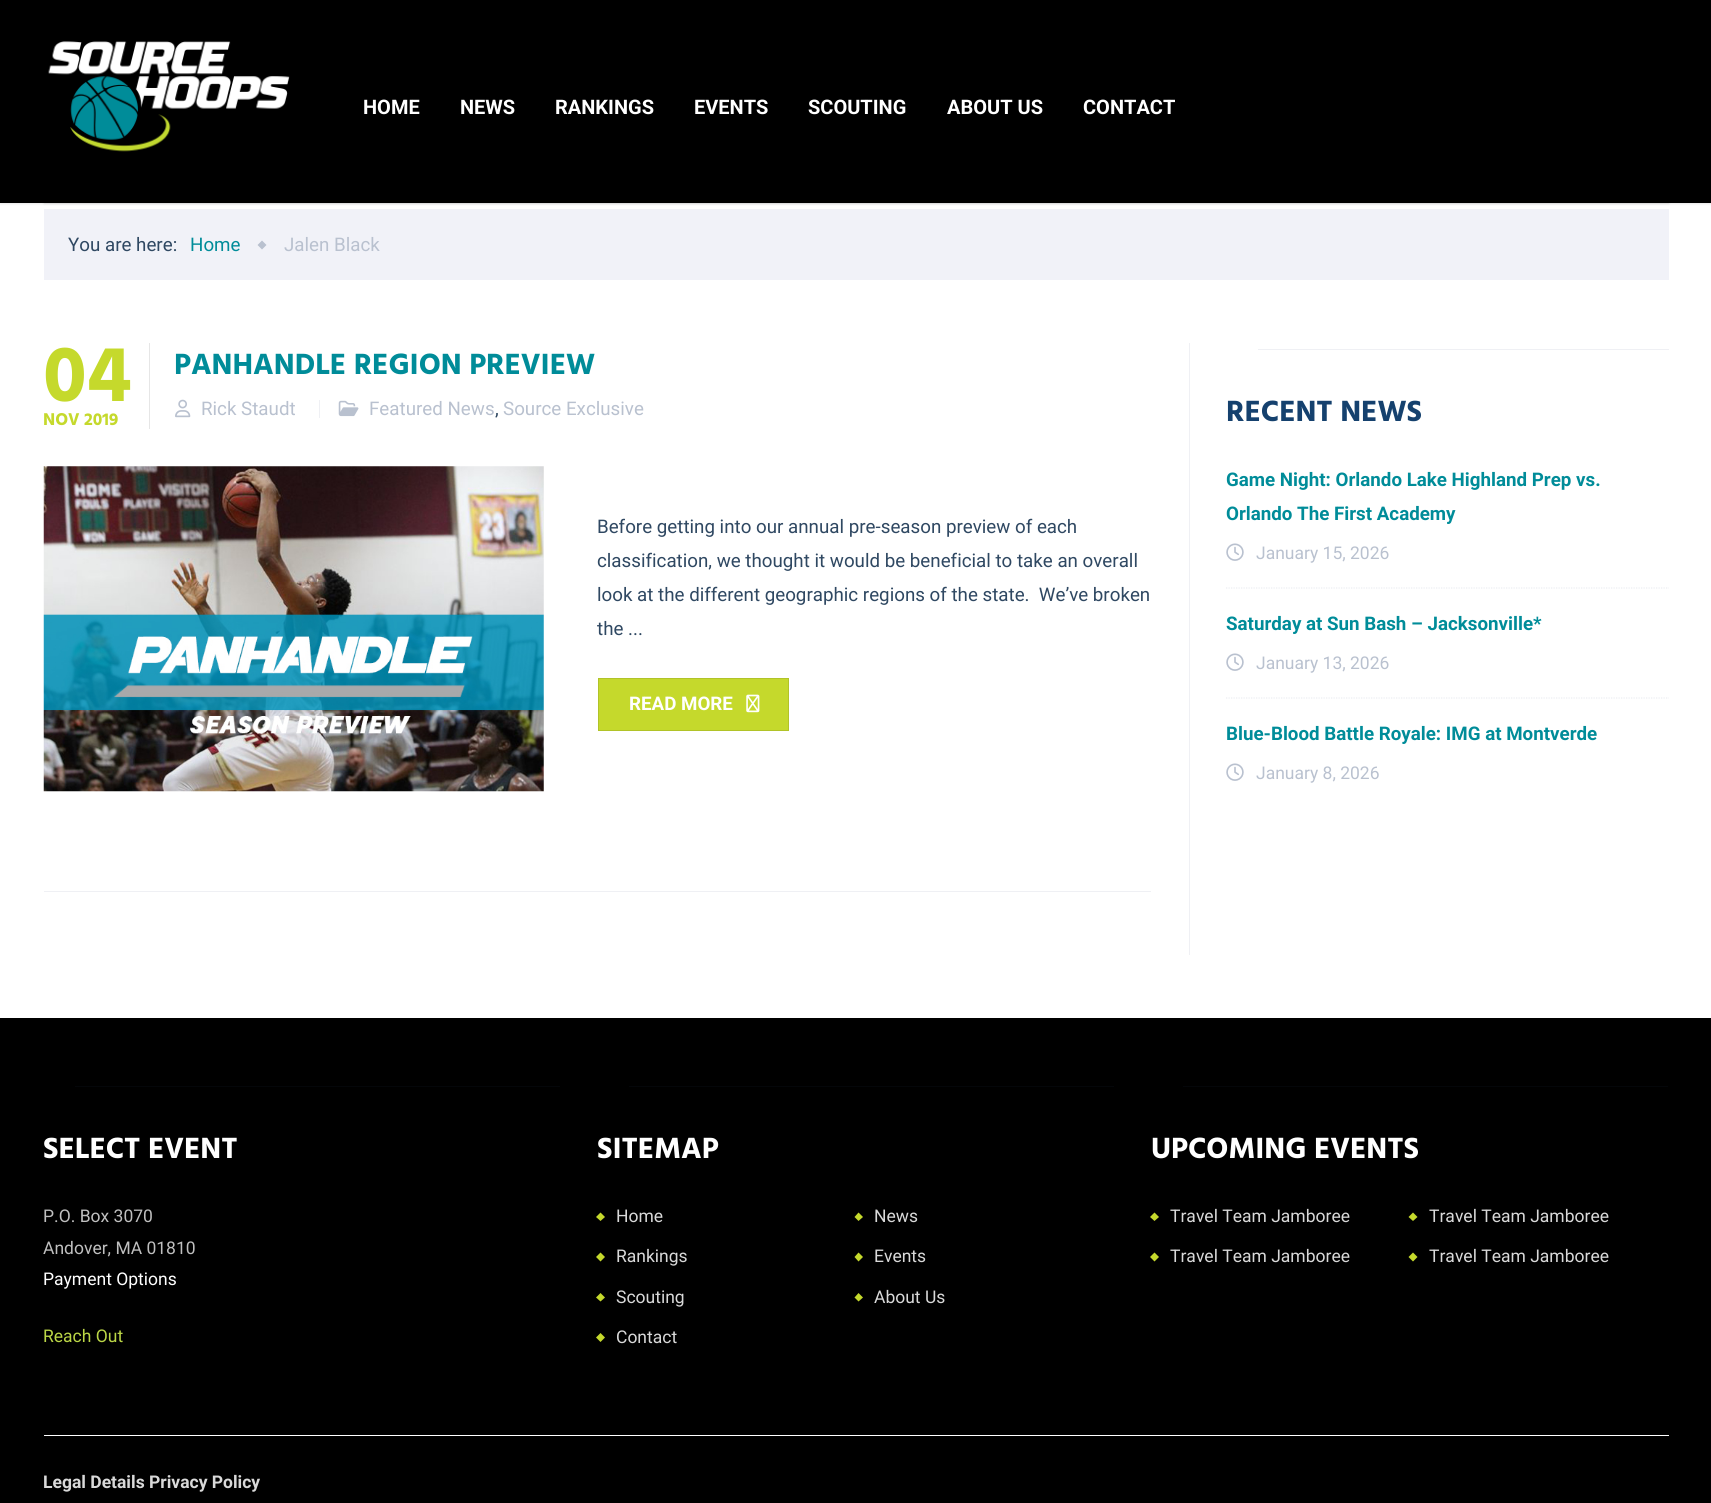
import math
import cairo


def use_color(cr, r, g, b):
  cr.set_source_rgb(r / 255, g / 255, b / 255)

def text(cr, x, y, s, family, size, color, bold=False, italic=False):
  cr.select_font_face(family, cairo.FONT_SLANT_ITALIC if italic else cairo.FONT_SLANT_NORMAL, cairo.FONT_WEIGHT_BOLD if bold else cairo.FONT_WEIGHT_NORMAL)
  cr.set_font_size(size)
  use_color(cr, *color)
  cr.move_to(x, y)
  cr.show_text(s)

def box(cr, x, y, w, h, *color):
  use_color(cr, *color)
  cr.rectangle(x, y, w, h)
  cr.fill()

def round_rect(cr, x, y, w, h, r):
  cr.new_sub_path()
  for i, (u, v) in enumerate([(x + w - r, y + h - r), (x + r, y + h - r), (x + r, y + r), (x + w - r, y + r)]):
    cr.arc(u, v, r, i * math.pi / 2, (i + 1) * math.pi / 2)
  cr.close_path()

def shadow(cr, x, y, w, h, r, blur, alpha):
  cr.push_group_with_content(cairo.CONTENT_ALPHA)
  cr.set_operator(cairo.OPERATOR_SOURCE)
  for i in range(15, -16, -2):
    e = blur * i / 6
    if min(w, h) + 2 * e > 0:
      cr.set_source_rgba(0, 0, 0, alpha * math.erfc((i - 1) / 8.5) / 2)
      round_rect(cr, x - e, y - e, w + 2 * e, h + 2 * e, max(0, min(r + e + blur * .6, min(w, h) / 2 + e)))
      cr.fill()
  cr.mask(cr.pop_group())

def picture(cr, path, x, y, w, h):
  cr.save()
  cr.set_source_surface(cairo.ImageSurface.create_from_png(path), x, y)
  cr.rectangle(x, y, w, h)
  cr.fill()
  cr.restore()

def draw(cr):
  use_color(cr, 255, 255, 255)
  cr.paint()
  box(cr, 0, 0, 1711, 203, 0, 0, 0)
  cr.save()
  cr.set_fill_rule(cairo.FILL_RULE_EVEN_ODD)
  cr.new_path()
  cr.move_to(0, 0)
  cr.line_to(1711, 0)
  cr.line_to(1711, 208)
  cr.line_to(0, 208)
  cr.close_path()
  cr.move_to(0, 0)
  cr.line_to(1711, 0)
  cr.line_to(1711, 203)
  cr.line_to(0, 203)
  cr.close_path()
  cr.clip()
  use_color(cr, 0, 0, 0)
  shadow(cr, 0, 1, 1711, 203, 0, 1, 0.1)
  cr.restore()
  cr.save()
  cr.set_fill_rule(cairo.FILL_RULE_EVEN_ODD)
  cr.new_path()
  cr.move_to(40, 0)
  cr.line_to(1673, 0)
  cr.line_to(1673, 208)
  cr.line_to(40, 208)
  cr.close_path()
  cr.move_to(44, 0)
  cr.line_to(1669, 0)
  cr.line_to(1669, 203)
  cr.line_to(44, 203)
  cr.close_path()
  cr.clip()
  use_color(cr, 0, 0, 0)
  shadow(cr, 44, 1, 1625, 203, 0, 1, 0.1)
  cr.restore()
  picture(cr, "img_01.png", 48, 41, 242, 111)
  box(cr, 44, 209, 1625, 71, 241, 242, 248)
  use_color(cr, 185, 193, 207)
  cr.new_path()
  cr.move_to(262, 240.5)
  cr.line_to(266.5, 245)
  cr.line_to(262, 249.5)
  cr.line_to(257.5, 245)
  cr.close_path()
  cr.fill()
  box(cr, 44, 891, 1107, 1, 239, 240, 244)
  box(cr, 149, 343, 1, 86, 230, 230, 230)
  picture(cr, "img_02.png", 175, 399, 16, 19)
  box(cr, 319, 400, 1, 18, 239, 240, 244)
  picture(cr, "img_03.png", 338, 400, 21, 17)
  picture(cr, "img_04.png", 43, 466, 501, 326)
  use_color(cr, 197, 217, 44)
  cr.rectangle(598.5, 678.5, 190, 52)
  cr.fill_preserve()
  use_color(cr, 177, 195, 40)
  cr.set_line_width(1)
  cr.stroke()
  picture(cr, "img_05.png", 746, 694, 14, 19)
  box(cr, 1189, 343, 1, 612, 239, 240, 244)
  box(cr, 1258, 349, 411, 1, 239, 240, 244)
  cr.new_path()
  cr.move_to(1226, 588)
  cr.line_to(1669, 588)
  use_color(cr, 235, 237, 241)
  cr.set_line_width(1.2)
  cr.set_dash([1.25, 1.25])
  cr.stroke()
  picture(cr, "img_06.png", 1226, 543, 18, 18)
  cr.new_path()
  cr.move_to(1226, 698)
  cr.line_to(1669, 698)
  cr.stroke()
  picture(cr, "img_06.png", 1226, 653, 18, 18)
  picture(cr, "img_06.png", 1226, 763, 18, 18)
  box(cr, 0, 1018, 1711, 485, 0, 0, 0)
  box(cr, 75, 1086, 485, 1, 4, 6, 9)
  box(cr, 629, 1086, 485, 1, 4, 6, 9)
  use_color(cr, 197, 217, 44)
  cr.new_path()
  cr.move_to(600.5, 1212.5)
  cr.line_to(605, 1217)
  cr.line_to(600.5, 1221)
  cr.line_to(596, 1217)
  cr.close_path()
  cr.fill()
  cr.new_path()
  cr.move_to(858.5, 1212.5)
  cr.line_to(863, 1217)
  cr.line_to(858.5, 1221)
  cr.line_to(854.5, 1217)
  cr.close_path()
  cr.fill()
  cr.new_path()
  cr.move_to(600.5, 1252.5)
  cr.line_to(605, 1257)
  cr.line_to(600.5, 1261.5)
  cr.line_to(596, 1257)
  cr.close_path()
  cr.fill()
  cr.new_path()
  cr.move_to(858.5, 1252.5)
  cr.line_to(863, 1257)
  cr.line_to(858.5, 1261.5)
  cr.line_to(854.5, 1257)
  cr.close_path()
  cr.fill()
  cr.new_path()
  cr.move_to(600.5, 1293)
  cr.line_to(605, 1297.5)
  cr.line_to(600.5, 1301.5)
  cr.line_to(596, 1297.5)
  cr.close_path()
  cr.fill()
  cr.new_path()
  cr.move_to(858.5, 1293)
  cr.line_to(863, 1297.5)
  cr.line_to(858.5, 1301.5)
  cr.line_to(854.5, 1297.5)
  cr.close_path()
  cr.fill()
  cr.new_path()
  cr.move_to(600.5, 1333)
  cr.line_to(605, 1337.5)
  cr.line_to(600.5, 1342)
  cr.line_to(596, 1337.5)
  cr.close_path()
  cr.fill()
  box(cr, 1183, 1086, 485, 1, 4, 6, 9)
  use_color(cr, 197, 217, 44)
  cr.new_path()
  cr.move_to(1154.5, 1212.5)
  cr.line_to(1159, 1217)
  cr.line_to(1154.5, 1221)
  cr.line_to(1150, 1217)
  cr.close_path()
  cr.fill()
  cr.new_path()
  cr.move_to(1413, 1212.5)
  cr.line_to(1417.5, 1217)
  cr.line_to(1413, 1221)
  cr.line_to(1408.5, 1217)
  cr.close_path()
  cr.fill()
  cr.new_path()
  cr.move_to(1154.5, 1252.5)
  cr.line_to(1159, 1257)
  cr.line_to(1154.5, 1261.5)
  cr.line_to(1150, 1257)
  cr.close_path()
  cr.fill()
  cr.new_path()
  cr.move_to(1413, 1252.5)
  cr.line_to(1417.5, 1257)
  cr.line_to(1413, 1261.5)
  cr.line_to(1408.5, 1257)
  cr.close_path()
  cr.fill()
  box(cr, 44, 1435, 1625, 1, 255, 255, 255)
  text(cr, 363, 114, "HOME", "Roboto", 20, (255, 255, 255), bold=True)
  text(cr, 460, 114, "NEWS", "Roboto", 20, (255, 255, 255), bold=True)
  text(cr, 555, 114, "RANKINGS", "Roboto", 20, (255, 255, 255), bold=True)
  text(cr, 694, 114, "EVENTS", "Roboto", 20, (255, 255, 255), bold=True)
  text(cr, 808, 114, "SCOUTING", "Roboto", 20, (255, 255, 255), bold=True)
  text(cr, 947, 114, "ABOUT US", "Roboto", 20, (255, 255, 255), bold=True)
  text(cr, 1083, 114, "CONTACT", "Roboto", 20, (255, 255, 255), bold=True)
  text(cr, 68, 251, "You are here:", "Roboto", 18.75, (47, 72, 98))
  text(cr, 190, 251, "Home", "Roboto", 18.75, (0, 140, 153))
  text(cr, 284, 251, "Jalen Black", "Roboto", 18.75, (185, 193, 207))
  text(cr, 43, 401, "04", "Hind Vadodara", 80, (197, 217, 44), bold=True)
  text(cr, 43, 425, "NOV 2019", "Hind Vadodara", 17.5, (197, 217, 44), bold=True)
  text(cr, 174, 374, "PANHANDLE REGION PREVIEW", "Hind Vadodara", 30, (0, 140, 153), bold=True)
  text(cr, 201, 415, "Rick Staudt", "Roboto", 18.75, (185, 193, 207))
  text(cr, 369, 415, "Featured News", "Roboto", 18.75, (185, 193, 207))
  text(cr, 495, 415, ",", "Roboto", 18.75, (47, 72, 98))
  text(cr, 503, 415, "Source Exclusive", "Roboto", 18.75, (185, 193, 207))
  text(cr, 597, 533, "Before getting into our annual pre-season preview of each", "Roboto", 18.75, (47, 72, 98))
  text(cr, 597, 567, "classification, we thought it would be beneficial to take an overall", "Roboto", 18.75, (47, 72, 98))
  text(cr, 597, 601, "look at the different geographic regions of the state.  We’ve broken", "Roboto", 18.75, (47, 72, 98))
  text(cr, 597, 635, "the ...", "Roboto", 18.75, (47, 72, 98))
  text(cr, 629, 710, "READ MORE", "Roboto", 18.75, (255, 255, 255), bold=True)
  text(cr, 1226, 421, "RECENT NEWS", "Hind Vadodara", 30, (21, 65, 110), bold=True)
  text(cr, 1226, 486, "Game Night: Orlando Lake Highland Prep vs.", "Roboto", 18.75, (0, 140, 153), bold=True)
  text(cr, 1226, 520, "Orlando The First Academy", "Roboto", 18.75, (0, 140, 153), bold=True)
  text(cr, 1256, 559, "January 15, 2026", "Roboto", 17.5, (185, 193, 207))
  text(cr, 1226, 630, "Saturday at Sun Bash – Jacksonville*", "Roboto", 18.75, (0, 140, 153), bold=True)
  text(cr, 1256, 669, "January 13, 2026", "Roboto", 17.5, (185, 193, 207))
  text(cr, 1226, 740, "Blue-Blood Battle Royale: IMG at Montverde", "Roboto", 18.75, (0, 140, 153), bold=True)
  text(cr, 1256, 779, "January 8, 2026", "Roboto", 17.5, (185, 193, 207))
  text(cr, 43, 1158, "SELECT EVENT", "Hind Vadodara", 30, (255, 255, 255), bold=True)
  text(cr, 43, 1222, "P.O. Box 3070", "Roboto", 17.5, (191, 191, 191))
  text(cr, 43, 1254, "Andover, MA 01810", "Roboto", 17.5, (191, 191, 191))
  text(cr, 43, 1285, "Payment Options", "Roboto", 17.5, (255, 255, 255))
  text(cr, 43, 1342, "Reach Out", "Roboto", 17.5, (187, 214, 70))
  text(cr, 597, 1158, "SITEMAP", "Hind Vadodara", 30, (255, 255, 255), bold=True)
  text(cr, 616, 1222, "Home", "Roboto", 17.5, (217, 217, 217))
  text(cr, 874, 1222, "News", "Roboto", 17.5, (217, 217, 217))
  text(cr, 616, 1262, "Rankings", "Roboto", 17.5, (217, 217, 217))
  text(cr, 874, 1262, "Events", "Roboto", 17.5, (217, 217, 217))
  text(cr, 616, 1303, "Scouting", "Roboto", 17.5, (217, 217, 217))
  text(cr, 874, 1303, "About Us", "Roboto", 17.5, (217, 217, 217))
  text(cr, 616, 1343, "Contact", "Roboto", 17.5, (217, 217, 217))
  text(cr, 1151, 1158, "UPCOMING EVENTS", "Hind Vadodara", 30, (255, 255, 255), bold=True)
  text(cr, 1170, 1222, "Travel Team Jamboree", "Roboto", 17.5, (217, 217, 217))
  text(cr, 1429, 1222, "Travel Team Jamboree", "Roboto", 17.5, (217, 217, 217))
  text(cr, 1170, 1262, "Travel Team Jamboree", "Roboto", 17.5, (217, 217, 217))
  text(cr, 1429, 1262, "Travel Team Jamboree", "Roboto", 17.5, (217, 217, 217))
  text(cr, 43, 1488, "Legal Details Privacy Policy", "Roboto", 17.5, (217, 217, 217), bold=True)


surface = cairo.ImageSurface(cairo.FORMAT_RGB24, 1711, 1503)
cr = cairo.Context(surface)
options = cairo.FontOptions()
options.set_hint_metrics(cairo.HINT_METRICS_OFF)
options.set_hint_style(cairo.HINT_STYLE_NONE)
cr.set_font_options(options)
cr.set_miter_limit(4)
draw(cr)
surface.write_to_png("out.png")
